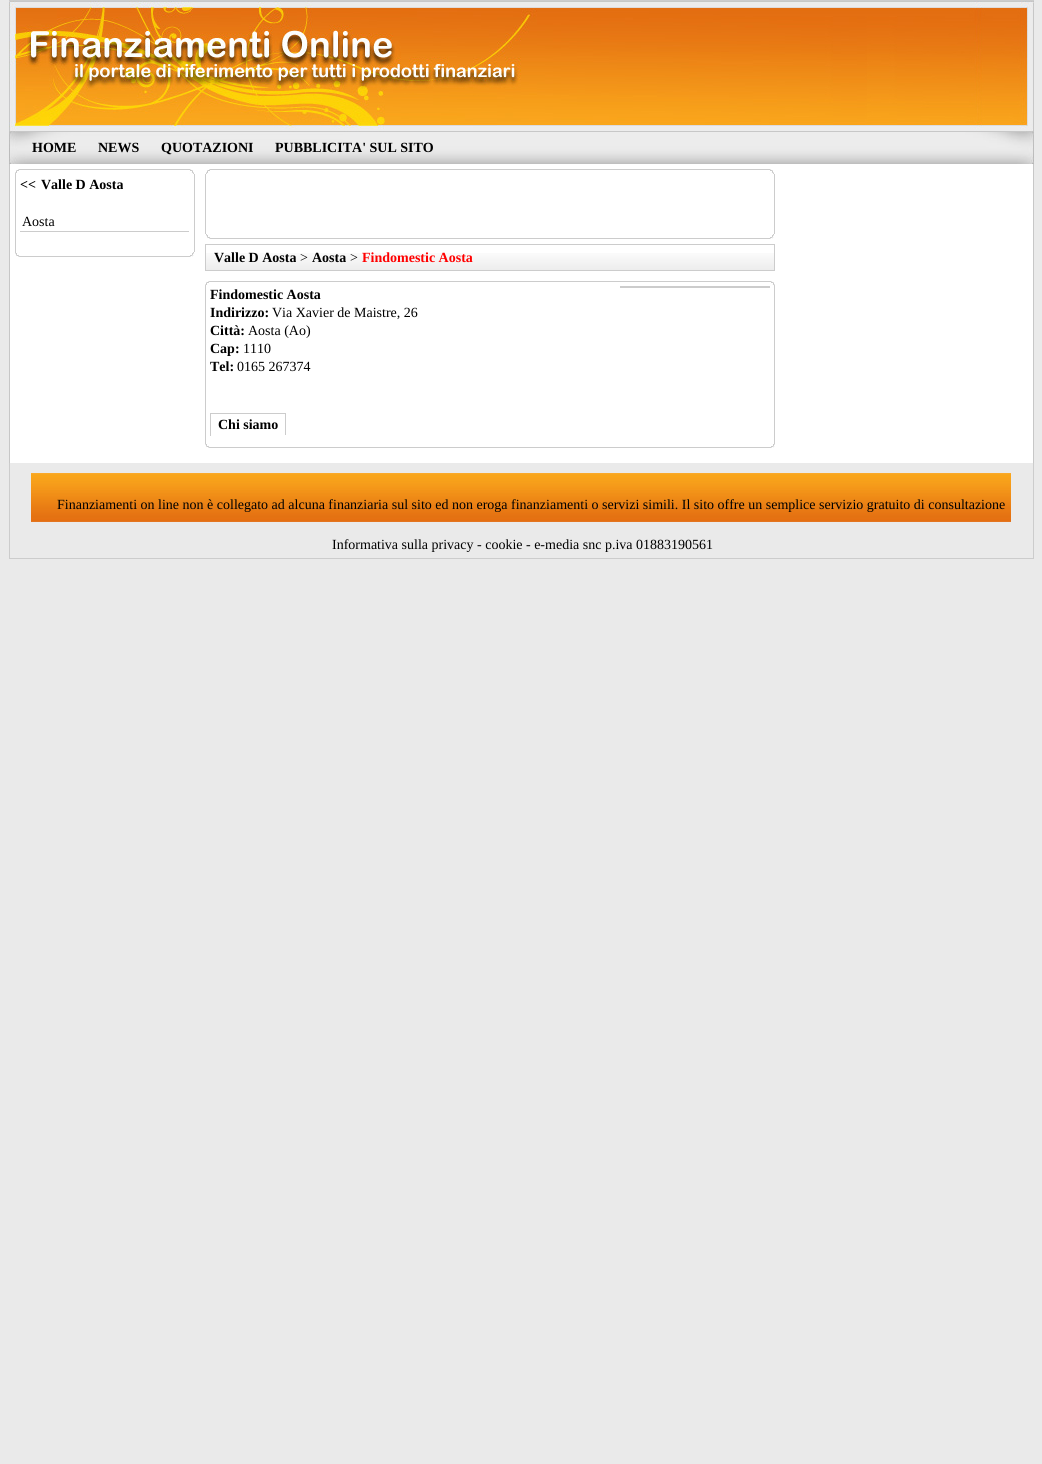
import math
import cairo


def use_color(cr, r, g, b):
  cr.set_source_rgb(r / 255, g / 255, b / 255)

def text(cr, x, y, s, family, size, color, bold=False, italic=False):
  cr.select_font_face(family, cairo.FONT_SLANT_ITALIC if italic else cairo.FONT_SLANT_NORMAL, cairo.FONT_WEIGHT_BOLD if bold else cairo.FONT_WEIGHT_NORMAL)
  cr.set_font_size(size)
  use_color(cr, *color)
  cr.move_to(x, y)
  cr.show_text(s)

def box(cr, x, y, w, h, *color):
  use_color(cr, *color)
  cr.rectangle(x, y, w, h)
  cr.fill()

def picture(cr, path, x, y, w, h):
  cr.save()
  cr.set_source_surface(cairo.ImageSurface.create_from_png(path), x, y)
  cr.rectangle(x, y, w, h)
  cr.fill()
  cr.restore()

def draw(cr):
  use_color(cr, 234, 234, 234)
  cr.paint()
  picture(cr, "img_01.png", 9, 0, 1025, 132)
  picture(cr, "img_02.png", 9, 132, 1025, 32)
  box(cr, 10, 164, 1023, 299, 255, 255, 255)
  box(cr, 1033, 164, 1, 299, 199, 199, 199)
  box(cr, 9, 164, 1, 299, 199, 199, 199)
  picture(cr, "img_03.png", 15, 169, 5, 5)
  box(cr, 20, 169, 169, 1, 204, 204, 204)
  picture(cr, "img_04.png", 189, 169, 5, 5)
  box(cr, 15, 174, 1, 78, 204, 204, 204)
  box(cr, 20, 231, 169, 1, 204, 204, 204)
  box(cr, 194, 174, 1, 78, 204, 204, 204)
  picture(cr, "img_05.png", 15, 252, 5, 5)
  box(cr, 20, 256, 169, 1, 204, 204, 204)
  picture(cr, "img_06.png", 189, 252, 5, 5)
  picture(cr, "img_03.png", 206, 169, 5, 5)
  box(cr, 211, 169, 558, 1, 204, 204, 204)
  picture(cr, "img_04.png", 769, 169, 5, 5)
  box(cr, 205, 174, 1, 60, 204, 204, 204)
  box(cr, 774, 174, 1, 60, 204, 204, 204)
  picture(cr, "img_05.png", 206, 234, 5, 5)
  box(cr, 211, 238, 558, 1, 204, 204, 204)
  picture(cr, "img_06.png", 769, 234, 5, 5)
  cr.rectangle(205.5, 244.5, 569, 26)
  cr.set_line_width(1)
  cr.stroke()
  picture(cr, "img_07.png", 206, 253, 568, 17)
  picture(cr, "img_03.png", 205, 281, 5, 5)
  box(cr, 210, 281, 560, 1, 204, 204, 204)
  picture(cr, "img_04.png", 770, 281, 5, 5)
  box(cr, 205, 286, 1, 157, 204, 204, 204)
  box(cr, 620, 286, 150, 2, 204, 204, 204)
  box(cr, 210, 413, 76, 1, 204, 204, 204)
  box(cr, 285, 413, 1, 23, 204, 204, 204)
  box(cr, 285, 435, 1, 1, 255, 255, 255)
  box(cr, 210, 413, 1, 23, 204, 204, 204)
  box(cr, 774, 286, 1, 157, 204, 204, 204)
  picture(cr, "img_05.png", 205, 443, 5, 5)
  box(cr, 210, 447, 560, 1, 204, 204, 204)
  picture(cr, "img_06.png", 770, 443, 5, 5)
  box(cr, 1033, 463, 1, 96, 204, 204, 204)
  box(cr, 9, 463, 1, 74, 204, 204, 204)
  picture(cr, "img_08.png", 31, 473, 980, 49)
  box(cr, 9, 558, 1025, 1, 204, 204, 204)
  box(cr, 9, 537, 1, 22, 204, 204, 204)
  text(cr, 32, 152, "HOME", "Liberation Serif", 14, (0, 0, 0), bold=True)
  text(cr, 98, 152, "NEWS", "Liberation Serif", 14, (0, 0, 0), bold=True)
  text(cr, 161, 152, "QUOTAZIONI", "Liberation Serif", 14, (0, 0, 0), bold=True)
  text(cr, 275, 152, "PUBBLICITA' SUL SITO", "Liberation Serif", 14, (0, 0, 0), bold=True)
  text(cr, 20, 189, "<<", "Liberation Serif", 14, (0, 0, 0), bold=True)
  text(cr, 41, 189, "Valle D Aosta", "Liberation Serif", 14, (0, 0, 0), bold=True)
  text(cr, 22, 226, "Aosta", "Liberation Serif", 14, (0, 0, 0))
  text(cr, 214, 262, "Valle D Aosta", "Liberation Serif", 14, (0, 0, 0), bold=True)
  text(cr, 300, 262, ">", "Liberation Serif", 14, (0, 0, 0))
  text(cr, 312, 262, "Aosta", "Liberation Serif", 14, (0, 0, 0), bold=True)
  text(cr, 350, 262, ">", "Liberation Serif", 14, (0, 0, 0))
  text(cr, 362, 262, "Findomestic Aosta", "Liberation Serif", 14, (255, 0, 0), bold=True)
  text(cr, 210, 299, "Findomestic Aosta", "Liberation Serif", 14, (0, 0, 0), bold=True)
  text(cr, 210, 317, "Indirizzo:", "Liberation Serif", 14, (0, 0, 0), bold=True)
  text(cr, 272, 317, "Via Xavier de Maistre, 26", "Liberation Serif", 14, (0, 0, 0))
  text(cr, 210, 335, "Città:", "Liberation Serif", 14, (0, 0, 0), bold=True)
  text(cr, 248, 335, "Aosta (Ao)", "Liberation Serif", 14, (0, 0, 0))
  text(cr, 210, 353, "Cap:", "Liberation Serif", 14, (0, 0, 0), bold=True)
  text(cr, 243, 353, "1110", "Liberation Serif", 14, (0, 0, 0))
  text(cr, 210, 371, "Tel:", "Liberation Serif", 14, (0, 0, 0), bold=True)
  text(cr, 237, 371, "0165 267374", "Liberation Serif", 14, (0, 0, 0))
  text(cr, 218, 429, "Chi siamo", "Liberation Serif", 14, (0, 0, 0), bold=True)
  text(cr, 57, 509, "Finanziamenti on line non è collegato ad alcuna finanziaria sul sito ed non eroga finanziamenti o servizi simili. Il sito offre un semplice servizio gratuito di consultazione", "Liberation Serif", 14, (0, 0, 0))
  text(cr, 332, 549, "Informativa sulla privacy - cookie - e-media snc p.iva 01883190561", "Liberation Serif", 14, (0, 0, 0))


surface = cairo.ImageSurface(cairo.FORMAT_RGB24, 1042, 1464)
cr = cairo.Context(surface)
options = cairo.FontOptions()
options.set_hint_metrics(cairo.HINT_METRICS_OFF)
options.set_hint_style(cairo.HINT_STYLE_NONE)
cr.set_font_options(options)
cr.set_miter_limit(4)
draw(cr)
surface.write_to_png("out.png")
